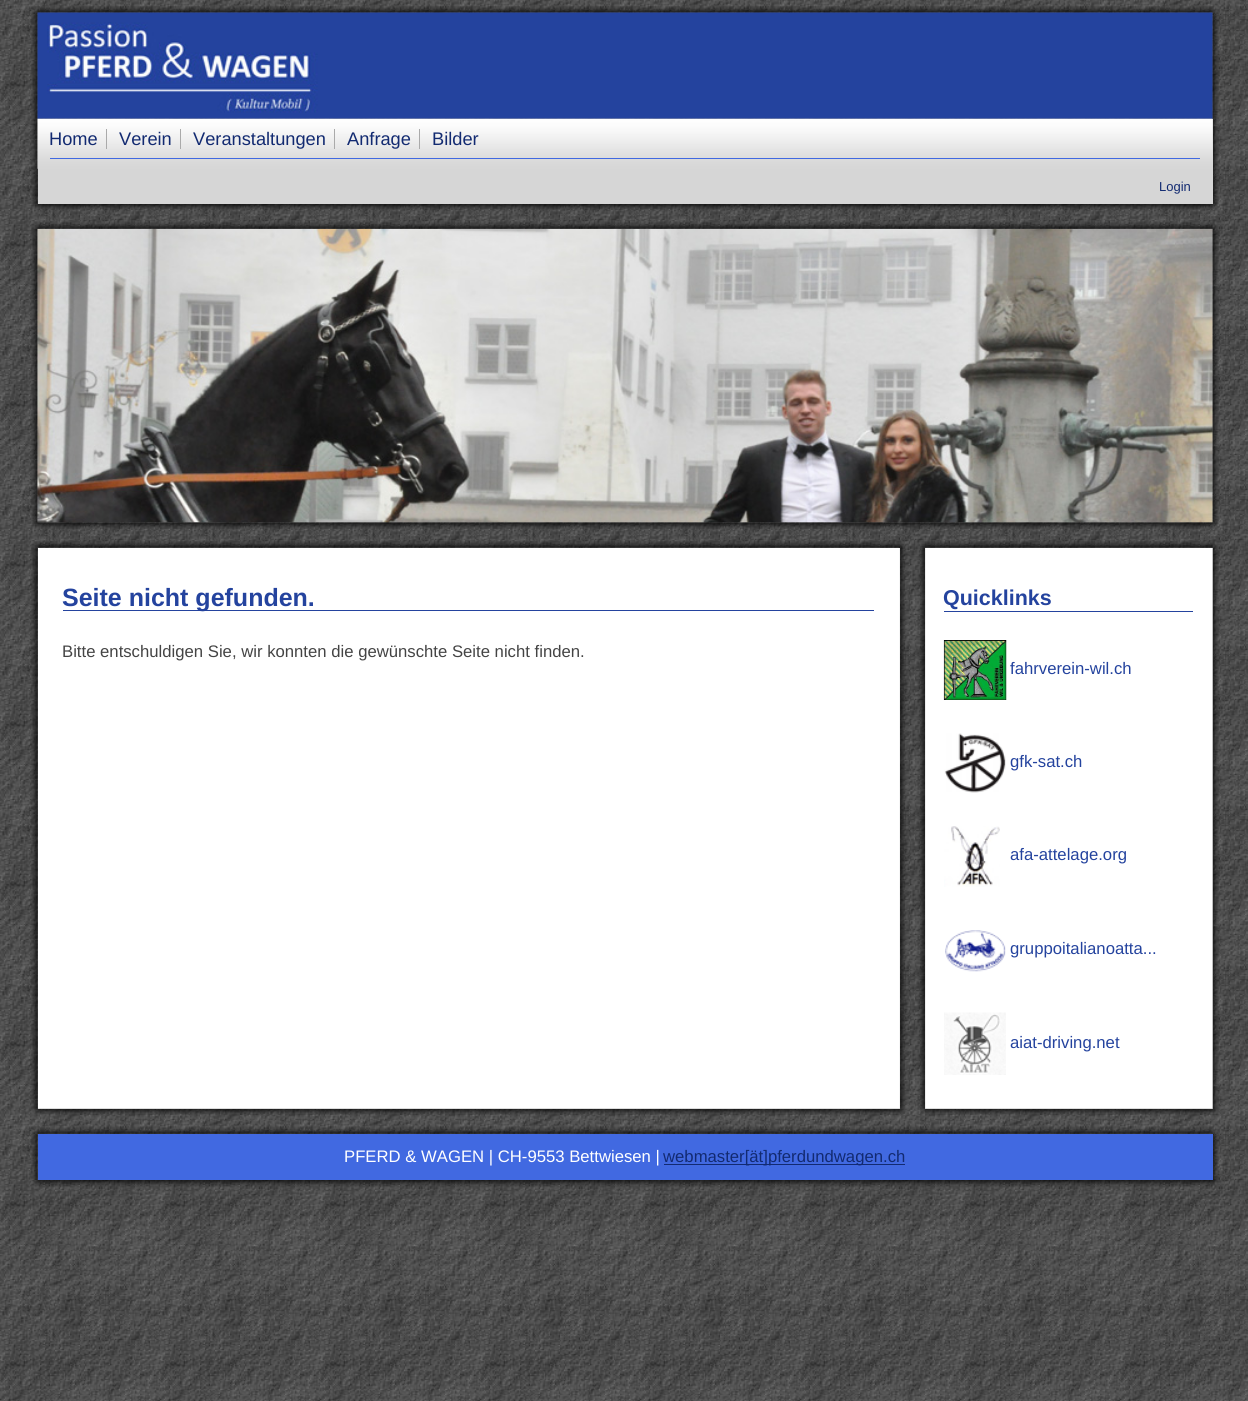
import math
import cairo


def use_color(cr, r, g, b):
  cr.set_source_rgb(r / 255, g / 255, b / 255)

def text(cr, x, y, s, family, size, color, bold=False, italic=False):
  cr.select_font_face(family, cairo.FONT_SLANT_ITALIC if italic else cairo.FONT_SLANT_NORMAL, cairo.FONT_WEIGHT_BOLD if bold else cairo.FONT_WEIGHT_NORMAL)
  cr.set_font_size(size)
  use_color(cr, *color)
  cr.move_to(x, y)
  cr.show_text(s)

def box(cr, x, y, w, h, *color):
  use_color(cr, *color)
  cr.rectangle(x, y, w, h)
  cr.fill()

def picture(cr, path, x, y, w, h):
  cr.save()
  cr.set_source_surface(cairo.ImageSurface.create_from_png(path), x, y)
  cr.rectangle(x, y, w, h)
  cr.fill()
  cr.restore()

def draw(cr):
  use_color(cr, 255, 255, 255)
  cr.paint()
  picture(cr, "img_01.png", 0, 0, 1248, 1401)
  picture(cr, "img_02.png", 32, 6, 1186, 7)
  picture(cr, "img_03.png", 31, 12, 1188, 107)
  picture(cr, "img_05.png", 31, 118, 1188, 86)
  picture(cr, "img_04.png", 37, 12, 1176, 107)
  picture(cr, "img_07.png", 31, 203, 1188, 7)
  box(cr, 38, 119, 1175, 85, 214, 214, 214)
  picture(cr, "img_06.png", 37, 118, 1176, 51)
  box(cr, 106, 129, 1, 20, 170, 170, 170)
  box(cr, 180, 129, 1, 20, 170, 170, 170)
  box(cr, 334, 129, 1, 20, 170, 170, 170)
  box(cr, 419, 129, 1, 20, 170, 170, 170)
  box(cr, 50, 158, 1150, 1, 65, 105, 225)
  picture(cr, "img_08.png", 32, 222, 1186, 7)
  picture(cr, "img_09.png", 31, 228, 1188, 295)
  picture(cr, "img_11.png", 32, 522, 1187, 7)
  picture(cr, "img_10.png", 37, 228, 1176, 295)
  picture(cr, "img_12.png", 32, 541, 1186, 7)
  box(cr, 38, 548, 862, 561, 255, 255, 255)
  box(cr, 925, 548, 288, 561, 255, 255, 255)
  picture(cr, "img_13.png", 31, 547, 1188, 13)
  picture(cr, "img_20.png", 32, 1108, 1186, 7)
  picture(cr, "img_14.png", 31, 560, 1188, 549)
  box(cr, 63, 610, 811, 1, 36, 67, 158)
  box(cr, 944, 611, 249, 1, 36, 67, 158)
  picture(cr, "img_15.png", 943, 640, 64, 60)
  picture(cr, "img_16.png", 944, 733, 62, 60)
  picture(cr, "img_17.png", 944, 826, 56, 61)
  picture(cr, "img_18.png", 945, 930, 61, 42)
  picture(cr, "img_19.png", 944, 1012, 62, 63)
  picture(cr, "img_21.png", 32, 1127, 1186, 7)
  picture(cr, "img_22.png", 31, 1133, 1188, 47)
  box(cr, 38, 1134, 1175, 46, 65, 105, 225)
  box(cr, 664, 1164, 241, 1, 18, 42, 113)
  picture(cr, "img_23.png", 31, 1180, 1187, 7)
  text(cr, 49, 145, "Home", "Liberation Sans", 18.25, (18, 42, 113))
  text(cr, 119, 145, "Verein", "Liberation Sans", 18.25, (18, 42, 113))
  text(cr, 193, 145, "Veranstaltungen", "Liberation Sans", 18.25, (18, 42, 113))
  text(cr, 347, 145, "Anfrage", "Liberation Sans", 18.25, (18, 42, 113))
  text(cr, 432, 145, "Bilder", "Liberation Sans", 18.25, (18, 42, 113))
  text(cr, 1159, 191, "Login", "Liberation Sans", 13, (18, 42, 113))
  text(cr, 62, 606, "Seite nicht gefunden.", "Liberation Sans", 25, (36, 67, 158), bold=True)
  text(cr, 62, 657, "Bitte entschuldigen Sie, wir konnten die gewünschte Seite nicht finden.", "Liberation Sans", 16.7, (68, 68, 68))
  text(cr, 943, 605, "Quicklinks", "Liberation Sans", 21.5, (36, 67, 158), bold=True)
  text(cr, 1010, 674, "fahrverein-wil.ch", "Liberation Sans", 16.7, (36, 67, 158))
  text(cr, 1010, 767, "gfk-sat.ch", "Liberation Sans", 16.7, (36, 67, 158))
  text(cr, 1010, 860, "afa-attelage.org", "Liberation Sans", 16.7, (36, 67, 158))
  text(cr, 1010, 954, "gruppoitalianoatta...", "Liberation Sans", 16.7, (36, 67, 158))
  text(cr, 1010, 1048, "aiat-driving.net", "Liberation Sans", 16.7, (36, 67, 158))
  text(cr, 344, 1162, "PFERD & WAGEN | CH-9553 Bettwiesen |", "Liberation Sans", 16.7, (255, 255, 255))
  text(cr, 663, 1162, "webmaster[ät]pferdundwagen.ch", "Liberation Sans", 16.7, (18, 42, 113))


surface = cairo.ImageSurface(cairo.FORMAT_RGB24, 1248, 1401)
cr = cairo.Context(surface)
options = cairo.FontOptions()
options.set_hint_metrics(cairo.HINT_METRICS_OFF)
options.set_hint_style(cairo.HINT_STYLE_NONE)
cr.set_font_options(options)
cr.set_miter_limit(4)
draw(cr)
surface.write_to_png("out.png")
